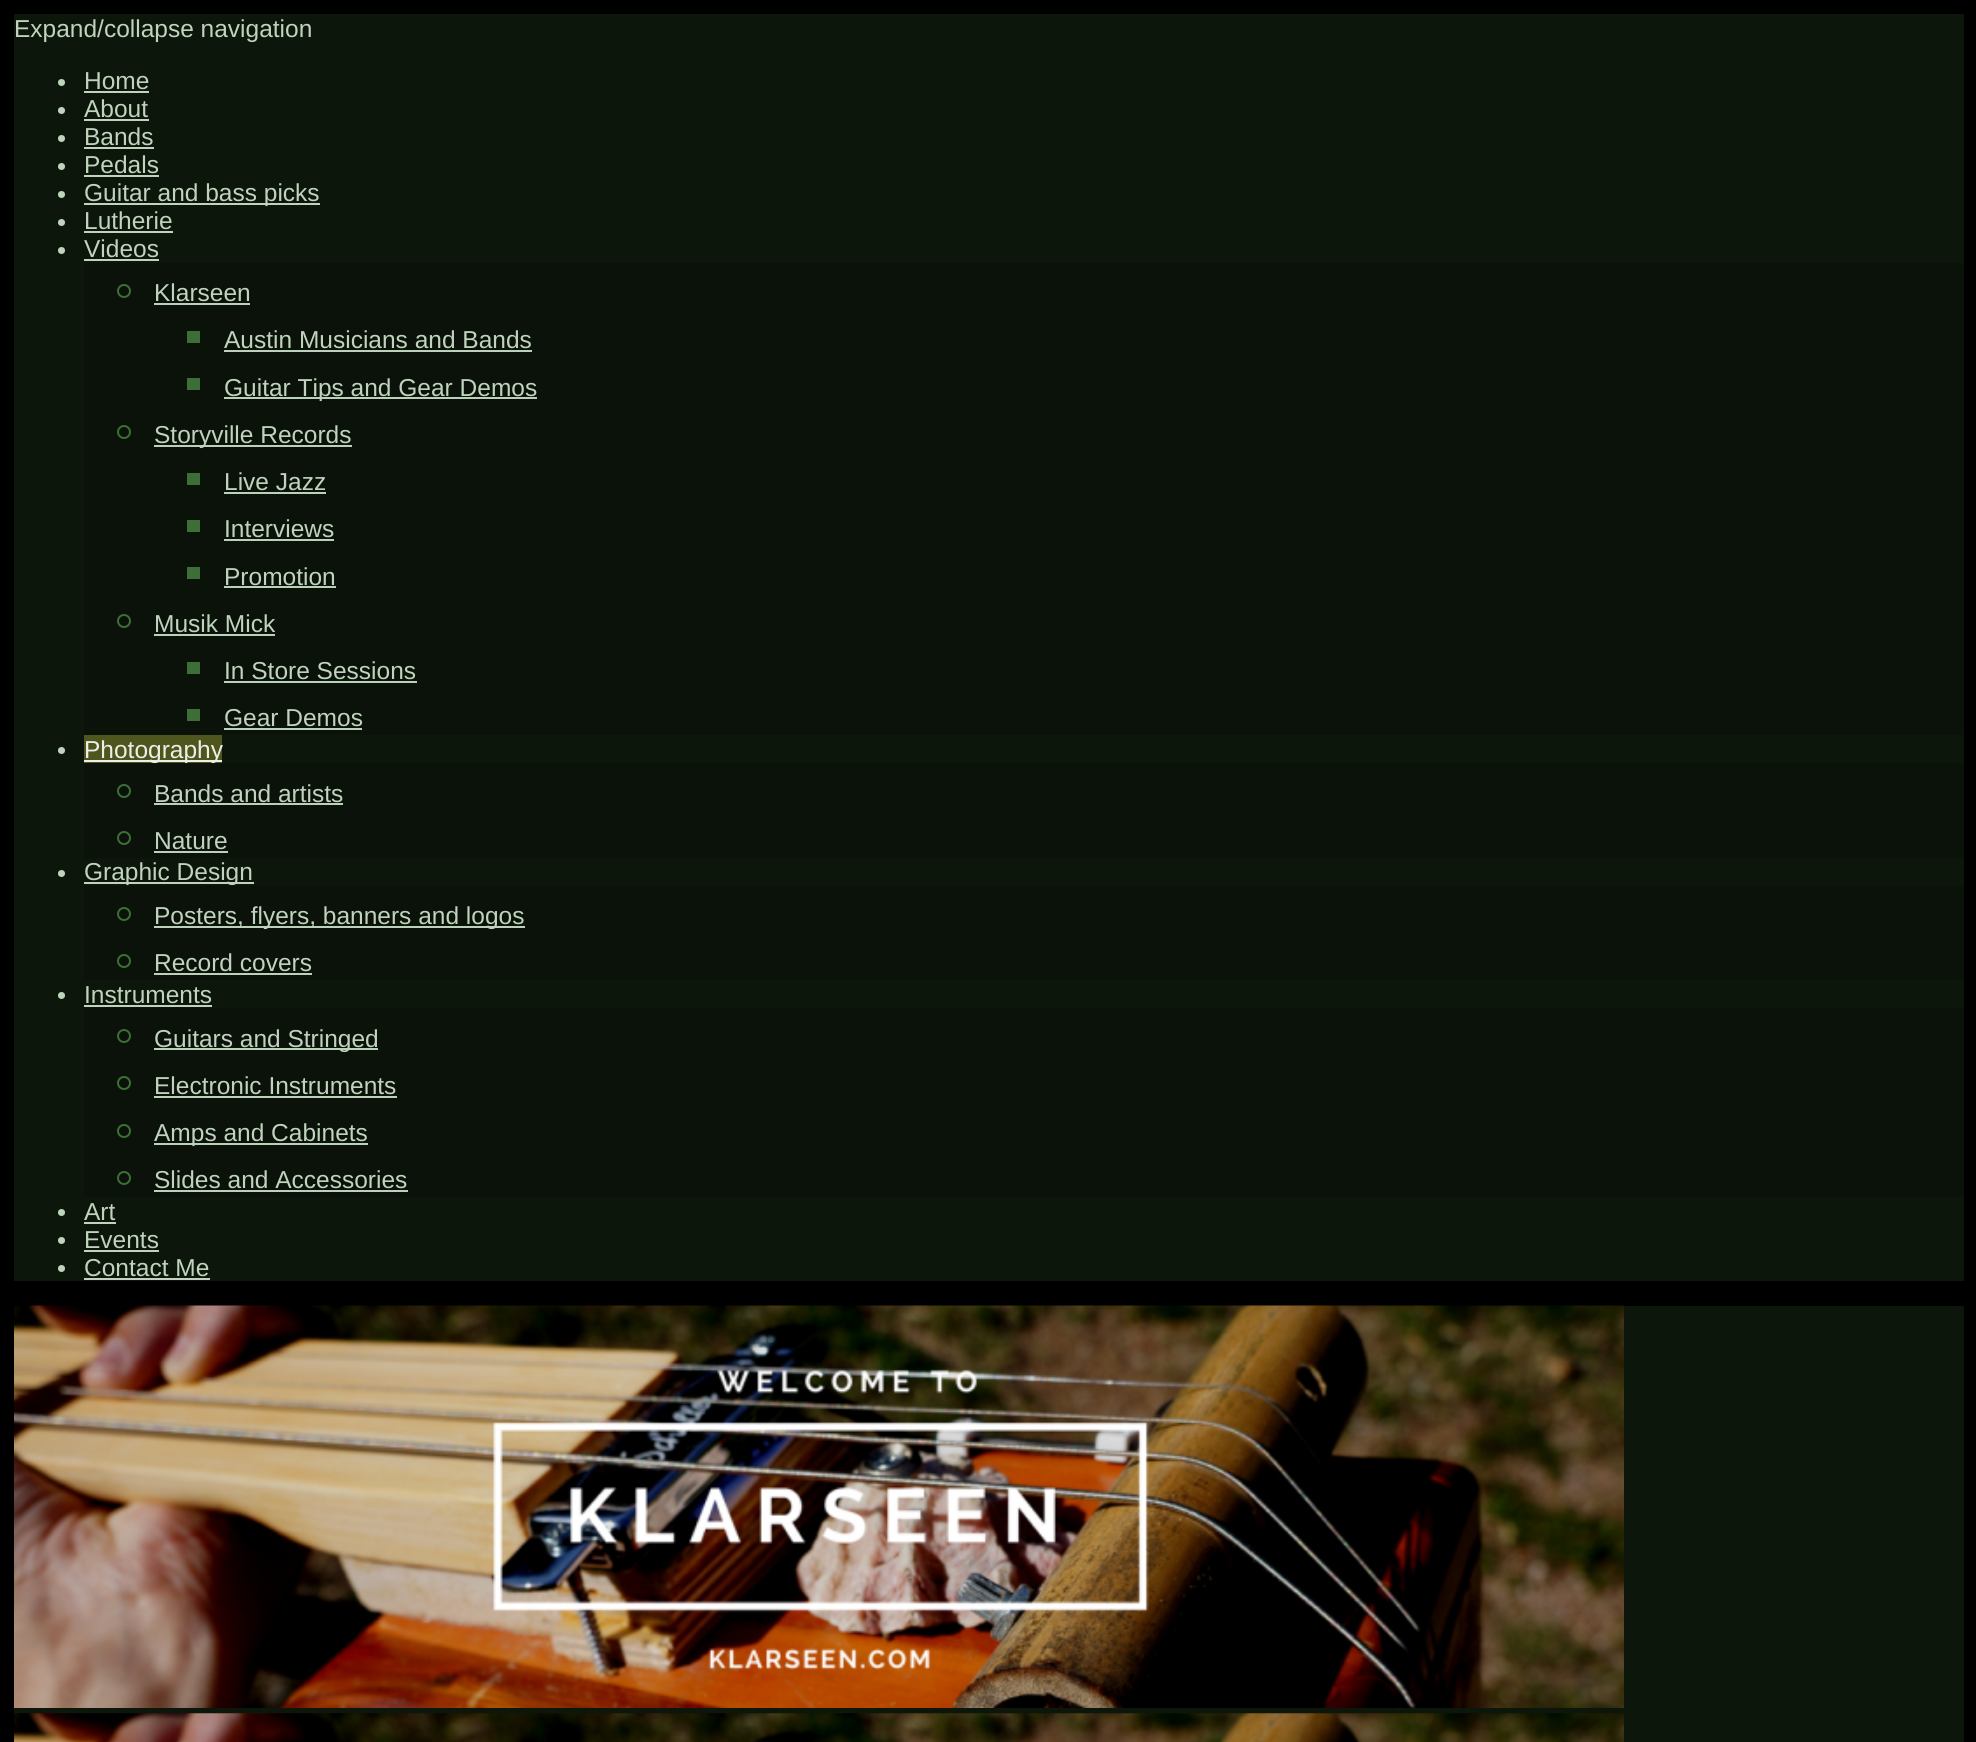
import math
import cairo


def use_color(cr, r, g, b):
  cr.set_source_rgb(r / 255, g / 255, b / 255)

def text(cr, x, y, s, family, size, color, bold=False, italic=False):
  cr.select_font_face(family, cairo.FONT_SLANT_ITALIC if italic else cairo.FONT_SLANT_NORMAL, cairo.FONT_WEIGHT_BOLD if bold else cairo.FONT_WEIGHT_NORMAL)
  cr.set_font_size(size)
  use_color(cr, *color)
  cr.move_to(x, y)
  cr.show_text(s)

def box(cr, x, y, w, h, *color):
  use_color(cr, *color)
  cr.rectangle(x, y, w, h)
  cr.fill()

def picture(cr, path, x, y, w, h):
  cr.save()
  cr.set_source_surface(cairo.ImageSurface.create_from_png(path), x, y)
  cr.rectangle(x, y, w, h)
  cr.fill()
  cr.restore()

def draw(cr):
  use_color(cr, 0, 0, 0)
  cr.paint()
  box(cr, 14, 14, 1950, 1267, 12, 22, 11)
  use_color(cr, 191, 211, 189)
  cr.arc(61.5, 82.5, 3.5, 0, 2 * math.pi)
  cr.fill()
  box(cr, 84, 91, 65, 2, 191, 211, 189)
  cr.arc(61.5, 110.5, 3.5, 0, 2 * math.pi)
  cr.fill()
  box(cr, 84, 119, 65, 2, 191, 211, 189)
  cr.arc(61.5, 138.5, 3.5, 0, 2 * math.pi)
  cr.fill()
  box(cr, 84, 147, 70, 2, 191, 211, 189)
  cr.arc(61.5, 166.5, 3.5, 0, 2 * math.pi)
  cr.fill()
  box(cr, 84, 175, 75, 2, 191, 211, 189)
  cr.arc(61.5, 194.5, 3.5, 0, 2 * math.pi)
  cr.fill()
  box(cr, 84, 203, 236, 2, 191, 211, 189)
  cr.arc(61.5, 222.5, 3.5, 0, 2 * math.pi)
  cr.fill()
  box(cr, 84, 231, 89, 2, 191, 211, 189)
  cr.arc(61.5, 250.5, 3.5, 0, 2 * math.pi)
  cr.fill()
  box(cr, 84, 259, 75, 2, 191, 211, 189)
  box(cr, 84, 263, 1880, 472, 10, 18, 9)
  cr.arc(124, 291, 6, 0, 2 * math.pi)
  use_color(cr, 61, 110, 55)
  cr.stroke()
  box(cr, 154, 303, 96, 2, 188, 209, 185)
  box(cr, 187, 331, 13, 12, 61, 110, 55)
  box(cr, 224, 350, 308, 2, 188, 209, 185)
  box(cr, 187, 378, 13, 12, 61, 110, 55)
  box(cr, 224, 397, 313, 2, 188, 209, 185)
  cr.arc(124, 432, 6, 0, 2 * math.pi)
  use_color(cr, 61, 110, 55)
  cr.stroke()
  box(cr, 154, 445, 198, 2, 188, 209, 185)
  box(cr, 187, 473, 13, 12, 61, 110, 55)
  box(cr, 224, 492, 102, 2, 188, 209, 185)
  box(cr, 187, 520, 13, 12, 61, 110, 55)
  box(cr, 224, 539, 110, 2, 188, 209, 185)
  box(cr, 187, 567, 13, 12, 61, 110, 55)
  box(cr, 224, 586, 112, 2, 188, 209, 185)
  cr.arc(124, 621, 6, 0, 2 * math.pi)
  use_color(cr, 61, 110, 55)
  cr.stroke()
  box(cr, 154, 634, 121, 2, 188, 209, 185)
  box(cr, 187, 662, 13, 12, 61, 110, 55)
  box(cr, 224, 681, 193, 2, 188, 209, 185)
  box(cr, 187, 709, 13, 12, 61, 110, 55)
  box(cr, 224, 728, 138, 2, 188, 209, 185)
  use_color(cr, 191, 211, 189)
  cr.arc(61.5, 750.5, 3.5, 0, 2 * math.pi)
  cr.fill()
  box(cr, 84, 735, 138, 28, 78, 86, 29)
  box(cr, 84, 760, 138, 2, 237, 238, 232)
  box(cr, 84, 763, 1880, 95, 10, 18, 9)
  cr.arc(124, 791, 6, 0, 2 * math.pi)
  use_color(cr, 61, 110, 55)
  cr.stroke()
  box(cr, 154, 803, 189, 2, 188, 209, 185)
  cr.arc(124, 838, 6, 0, 2 * math.pi)
  use_color(cr, 61, 110, 55)
  cr.stroke()
  box(cr, 154, 851, 74, 2, 188, 209, 185)
  use_color(cr, 191, 211, 189)
  cr.arc(61.5, 873.5, 3.5, 0, 2 * math.pi)
  cr.fill()
  box(cr, 84, 882, 170, 2, 191, 211, 189)
  box(cr, 84, 886, 1880, 94, 10, 18, 9)
  cr.arc(124, 914, 6, 0, 2 * math.pi)
  use_color(cr, 61, 110, 55)
  cr.stroke()
  box(cr, 154, 926, 371, 2, 188, 209, 185)
  cr.arc(124, 961, 6, 0, 2 * math.pi)
  use_color(cr, 61, 110, 55)
  cr.stroke()
  box(cr, 154, 973, 158, 2, 188, 209, 185)
  use_color(cr, 191, 211, 189)
  cr.arc(61.5, 995.5, 3.5, 0, 2 * math.pi)
  cr.fill()
  box(cr, 84, 1005, 128, 2, 191, 211, 189)
  box(cr, 84, 1008, 1880, 189, 10, 18, 9)
  cr.arc(124, 1036, 6, 0, 2 * math.pi)
  use_color(cr, 61, 110, 55)
  cr.stroke()
  box(cr, 154, 1048, 224, 2, 188, 209, 185)
  cr.arc(124, 1083, 6, 0, 2 * math.pi)
  use_color(cr, 61, 110, 55)
  cr.stroke()
  box(cr, 154, 1096, 243, 2, 188, 209, 185)
  cr.arc(124, 1131, 6, 0, 2 * math.pi)
  use_color(cr, 61, 110, 55)
  cr.stroke()
  box(cr, 154, 1143, 214, 2, 188, 209, 185)
  cr.arc(124, 1178, 6, 0, 2 * math.pi)
  use_color(cr, 61, 110, 55)
  cr.stroke()
  box(cr, 154, 1190, 254, 2, 188, 209, 185)
  use_color(cr, 191, 211, 189)
  cr.arc(61.5, 1212.5, 3.5, 0, 2 * math.pi)
  cr.fill()
  box(cr, 84, 1222, 32, 2, 191, 211, 189)
  cr.arc(61.5, 1240.5, 3.5, 0, 2 * math.pi)
  cr.fill()
  box(cr, 84, 1250, 75, 2, 191, 211, 189)
  cr.arc(61.5, 1268.5, 3.5, 0, 2 * math.pi)
  cr.fill()
  box(cr, 84, 1278, 126, 2, 191, 211, 189)
  box(cr, 14, 1306, 1950, 427, 12, 22, 11)
  picture(cr, "img_01.png", 14, 1305, 1610, 403)
  picture(cr, "img_02.png", 14, 1713, 1610, 29)
  box(cr, 1624, 1733, 340, 9, 12, 22, 11)
  text(cr, 14, 37, "Expand/collapse navigation", "Liberation Sans", 24.5, (191, 211, 189))
  text(cr, 84, 89, "Home", "Liberation Sans", 24.5, (191, 211, 189))
  text(cr, 84, 117, "About", "Liberation Sans", 24.5, (191, 211, 189))
  text(cr, 84, 145, "Bands", "Liberation Sans", 24.5, (191, 211, 189))
  text(cr, 84, 173, "Pedals", "Liberation Sans", 24.5, (191, 211, 189))
  text(cr, 84, 201, "Guitar and bass picks", "Liberation Sans", 24.5, (191, 211, 189))
  text(cr, 84, 229, "Lutherie", "Liberation Sans", 24.5, (191, 211, 189))
  text(cr, 84, 257, "Videos", "Liberation Sans", 24.5, (191, 211, 189))
  text(cr, 154, 301, "Klarseen", "Liberation Sans", 24.5, (191, 211, 189))
  text(cr, 224, 348, "Austin Musicians and Bands", "Liberation Sans", 24.5, (191, 211, 189))
  text(cr, 224, 396, "Guitar Tips and Gear Demos", "Liberation Sans", 24.5, (191, 211, 189))
  text(cr, 154, 443, "Storyville Records", "Liberation Sans", 24.5, (191, 211, 189))
  text(cr, 224, 490, "Live Jazz", "Liberation Sans", 24.5, (191, 211, 189))
  text(cr, 224, 537, "Interviews", "Liberation Sans", 24.5, (191, 211, 189))
  text(cr, 224, 585, "Promotion", "Liberation Sans", 24.5, (191, 211, 189))
  text(cr, 154, 632, "Musik Mick", "Liberation Sans", 24.5, (191, 211, 189))
  text(cr, 224, 679, "In Store Sessions", "Liberation Sans", 24.5, (191, 211, 189))
  text(cr, 224, 726, "Gear Demos", "Liberation Sans", 24.5, (191, 211, 189))
  text(cr, 84, 758, "Photography", "Liberation Sans", 24.5, (237, 238, 232))
  text(cr, 154, 802, "Bands and artists", "Liberation Sans", 24.5, (191, 211, 189))
  text(cr, 154, 849, "Nature", "Liberation Sans", 24.5, (191, 211, 189))
  text(cr, 84, 880, "Graphic Design", "Liberation Sans", 24.5, (191, 211, 189))
  text(cr, 154, 924, "Posters, flyers, banners and logos", "Liberation Sans", 24.5, (191, 211, 189))
  text(cr, 154, 971, "Record covers", "Liberation Sans", 24.5, (191, 211, 189))
  text(cr, 84, 1003, "Instruments", "Liberation Sans", 24.5, (191, 211, 189))
  text(cr, 154, 1047, "Guitars and Stringed", "Liberation Sans", 24.5, (191, 211, 189))
  text(cr, 154, 1094, "Electronic Instruments", "Liberation Sans", 24.5, (191, 211, 189))
  text(cr, 154, 1141, "Amps and Cabinets", "Liberation Sans", 24.5, (191, 211, 189))
  text(cr, 154, 1188, "Slides and Accessories", "Liberation Sans", 24.5, (191, 211, 189))
  text(cr, 84, 1220, "Art", "Liberation Sans", 24.5, (191, 211, 189))
  text(cr, 84, 1248, "Events", "Liberation Sans", 24.5, (191, 211, 189))
  text(cr, 84, 1276, "Contact Me", "Liberation Sans", 24.5, (191, 211, 189))


surface = cairo.ImageSurface(cairo.FORMAT_RGB24, 1976, 1742)
cr = cairo.Context(surface)
options = cairo.FontOptions()
options.set_hint_metrics(cairo.HINT_METRICS_OFF)
options.set_hint_style(cairo.HINT_STYLE_NONE)
cr.set_font_options(options)
cr.set_miter_limit(4)
draw(cr)
surface.write_to_png("out.png")
